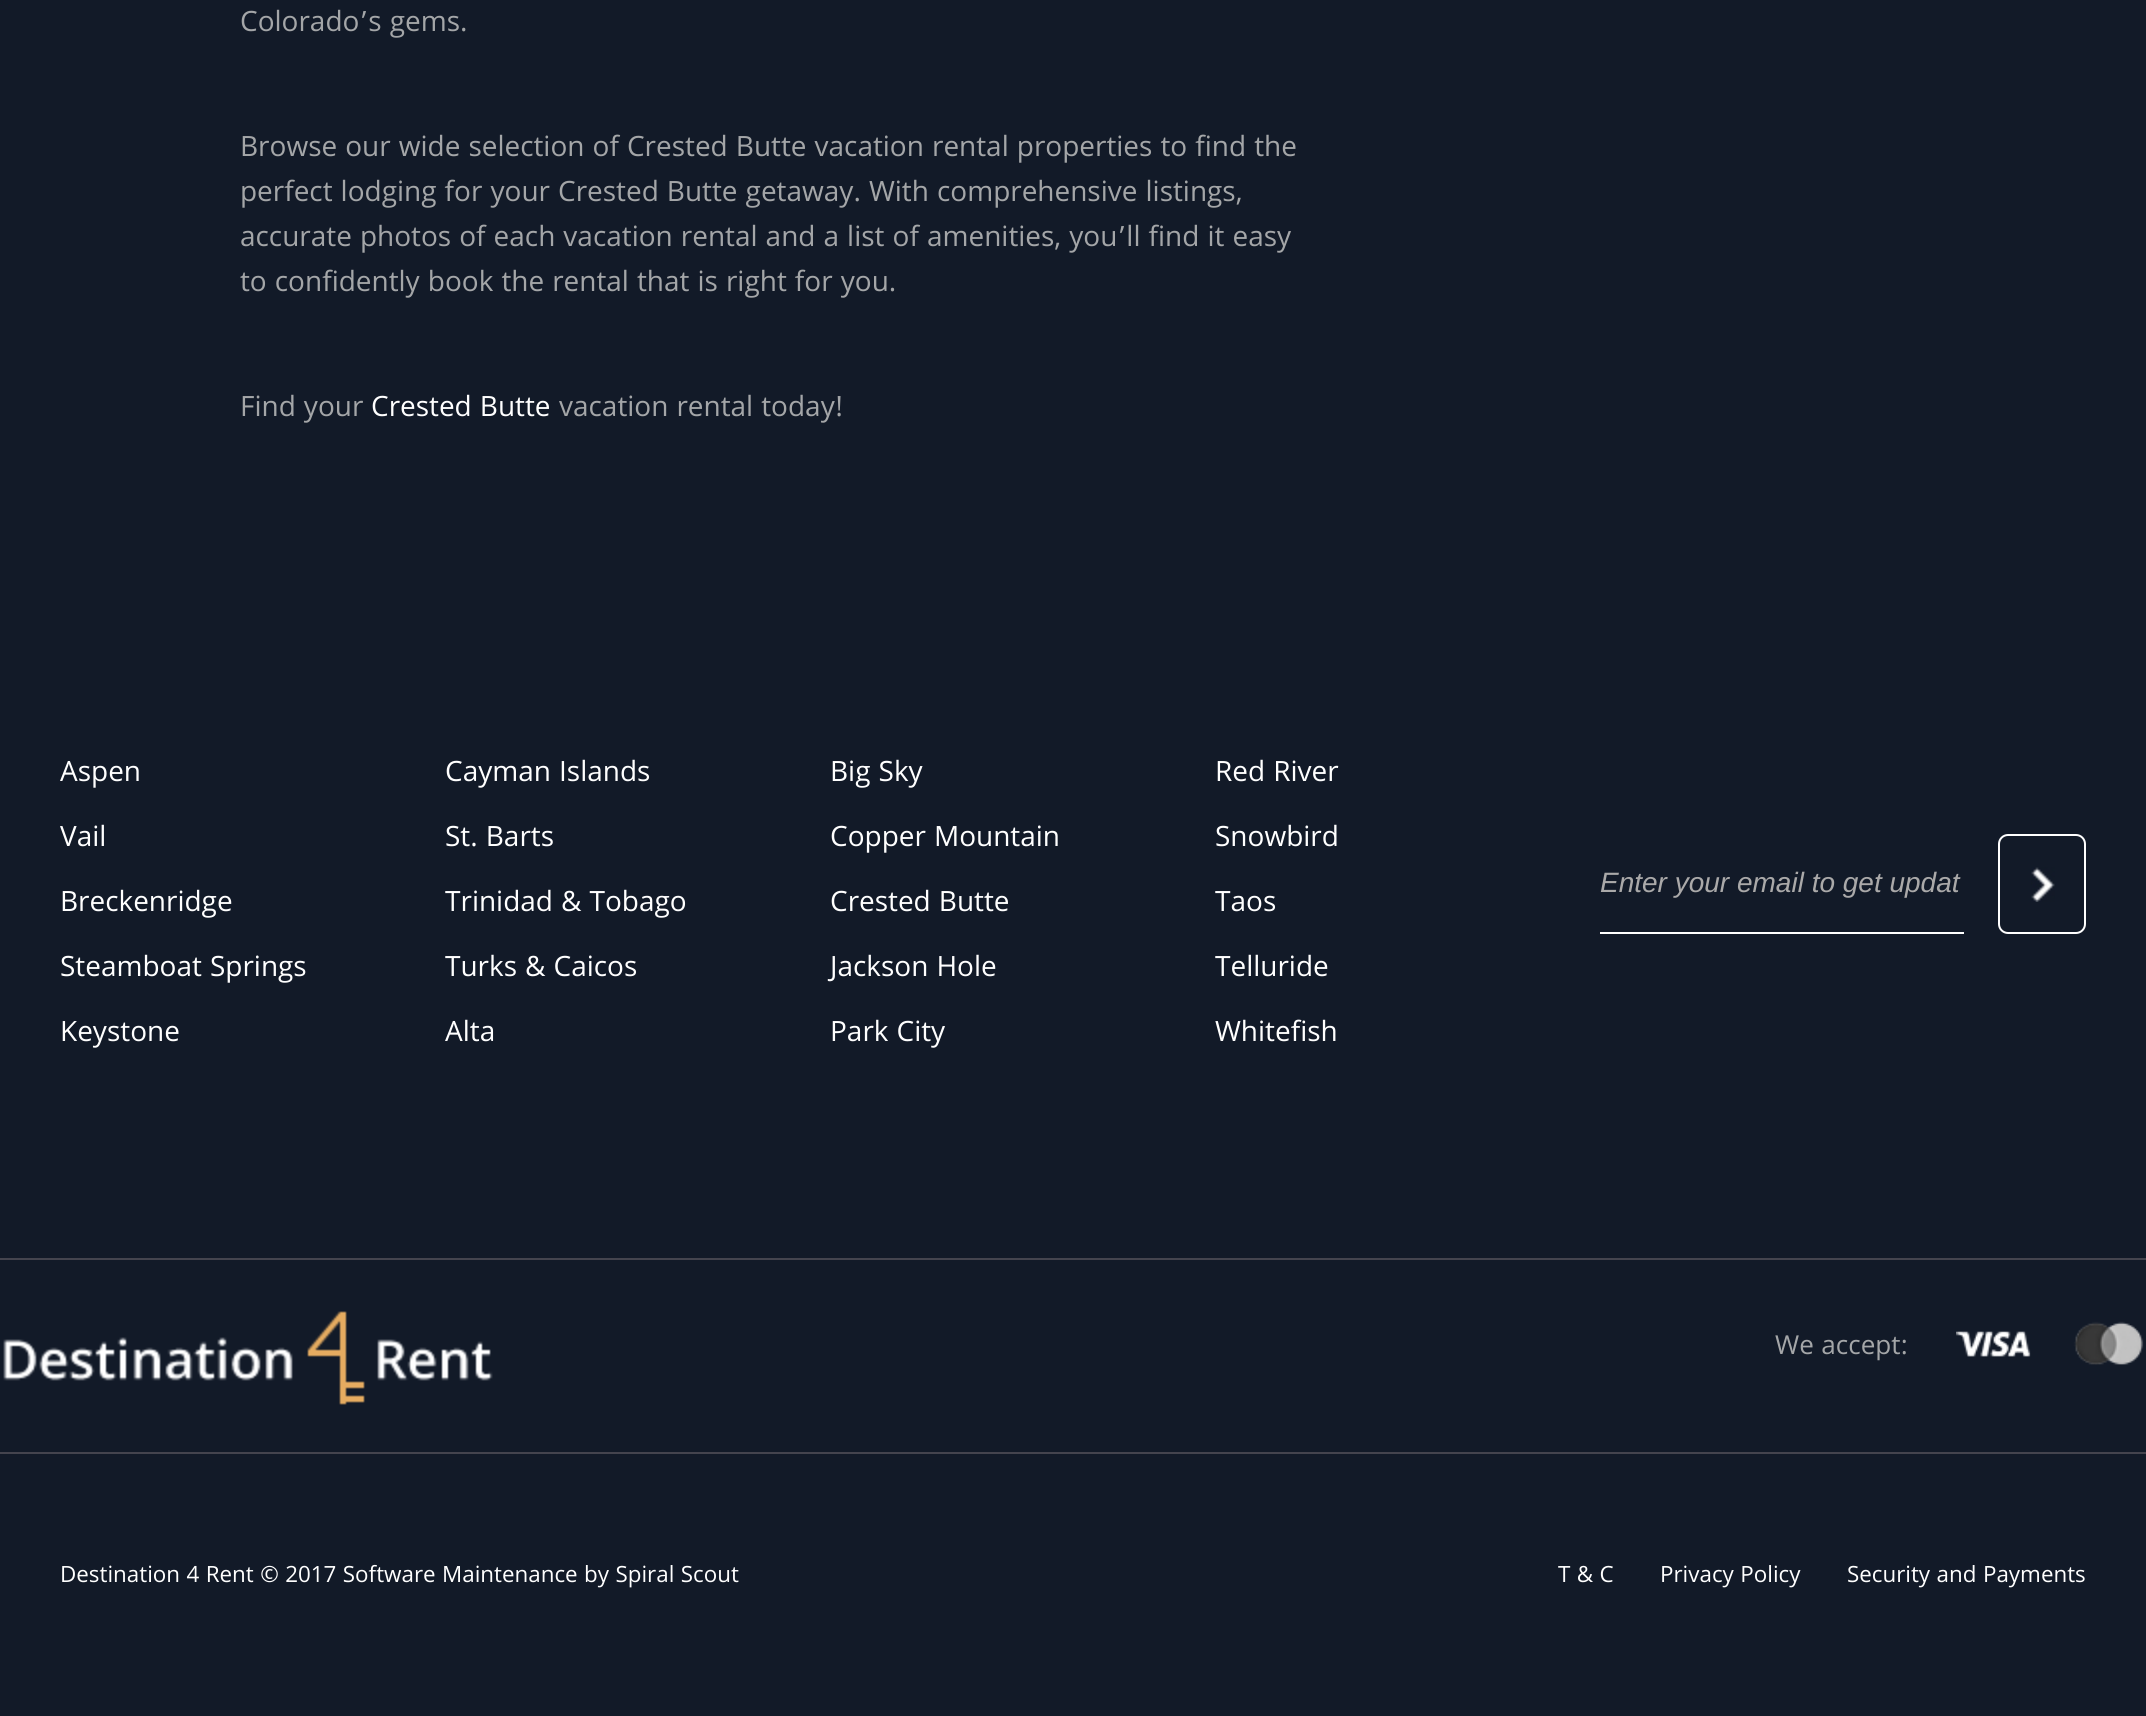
import math
import cairo


def use_color(cr, r, g, b):
  cr.set_source_rgb(r / 255, g / 255, b / 255)

def text(cr, x, y, s, family, size, color, bold=False, italic=False):
  cr.select_font_face(family, cairo.FONT_SLANT_ITALIC if italic else cairo.FONT_SLANT_NORMAL, cairo.FONT_WEIGHT_BOLD if bold else cairo.FONT_WEIGHT_NORMAL)
  cr.set_font_size(size)
  use_color(cr, *color)
  cr.move_to(x, y)
  cr.show_text(s)

def box(cr, x, y, w, h, *color):
  use_color(cr, *color)
  cr.rectangle(x, y, w, h)
  cr.fill()

def round_rect(cr, x, y, w, h, r):
  cr.new_sub_path()
  for i, (u, v) in enumerate([(x + w - r, y + h - r), (x + r, y + h - r), (x + r, y + r), (x + w - r, y + r)]):
    cr.arc(u, v, r, i * math.pi / 2, (i + 1) * math.pi / 2)
  cr.close_path()

def picture(cr, path, x, y, w, h):
  cr.save()
  cr.set_source_surface(cairo.ImageSurface.create_from_png(path), x, y)
  cr.rectangle(x, y, w, h)
  cr.fill()
  cr.restore()

def draw(cr):
  use_color(cr, 18, 26, 40)
  cr.paint()
  box(cr, 1600, 932, 364, 2, 255, 255, 255)
  picture(cr, "img_01.png", 2031, 867, 24, 35)
  round_rect(cr, 1999, 835, 86, 98, 9)
  cr.stroke()
  box(cr, 0, 1258, 2146, 2, 68, 68, 78)
  box(cr, 0, 1452, 2146, 2, 68, 68, 78)
  picture(cr, "img_02.png", 3, 1311, 490, 94)
  picture(cr, "img_03.png", 1956, 1321, 188, 44)
  text(cr, 240, 31, "Colorado’s gems.", "Khula", 30, (164, 166, 168))
  text(cr, 240, 156, "Browse our wide selection of Crested Butte vacation rental properties to find the", "Khula", 30, (164, 166, 168))
  text(cr, 240, 201, "perfect lodging for your Crested Butte getaway. With comprehensive listings,", "Khula", 30, (164, 166, 168))
  text(cr, 240, 246, "accurate photos of each vacation rental and a list of amenities, you’ll find it easy", "Khula", 30, (164, 166, 168))
  text(cr, 240, 291, "to confidently book the rental that is right for you.", "Khula", 30, (164, 166, 168))
  text(cr, 240, 416, "Find your", "Khula", 30, (164, 166, 168))
  text(cr, 371, 416, "Crested Butte", "Khula", 30, (255, 255, 255))
  text(cr, 559, 416, "vacation rental today!", "Khula", 30, (164, 166, 168))
  text(cr, 60, 781, "Aspen", "Khula", 30, (255, 255, 255))
  text(cr, 60, 846, "Vail", "Khula", 30, (255, 255, 255))
  text(cr, 60, 911, "Breckenridge", "Khula", 30, (255, 255, 255))
  text(cr, 60, 976, "Steamboat Springs", "Khula", 30, (255, 255, 255))
  text(cr, 60, 1041, "Keystone", "Khula", 30, (255, 255, 255))
  text(cr, 445, 781, "Cayman Islands", "Khula", 30, (255, 255, 255))
  text(cr, 445, 846, "St. Barts", "Khula", 30, (255, 255, 255))
  text(cr, 445, 911, "Trinidad & Tobago", "Khula", 30, (255, 255, 255))
  text(cr, 445, 976, "Turks & Caicos", "Khula", 30, (255, 255, 255))
  text(cr, 445, 1041, "Alta", "Khula", 30, (255, 255, 255))
  text(cr, 830, 781, "Big Sky", "Khula", 30, (255, 255, 255))
  text(cr, 830, 846, "Copper Mountain", "Khula", 30, (255, 255, 255))
  text(cr, 830, 911, "Crested Butte", "Khula", 30, (255, 255, 255))
  text(cr, 830, 976, "Jackson Hole", "Khula", 30, (255, 255, 255))
  text(cr, 830, 1041, "Park City", "Khula", 30, (255, 255, 255))
  text(cr, 1215, 781, "Red River", "Khula", 30, (255, 255, 255))
  text(cr, 1215, 846, "Snowbird", "Khula", 30, (255, 255, 255))
  text(cr, 1215, 911, "Taos", "Khula", 30, (255, 255, 255))
  text(cr, 1215, 976, "Telluride", "Khula", 30, (255, 255, 255))
  text(cr, 1215, 1041, "Whitefish", "Khula", 30, (255, 255, 255))
  text(cr, 1600, 892, "Enter your email to get updat", "Liberation Sans", 28, (170, 169, 169), italic=True)
  text(cr, 1775, 1354, "We accept:", "Khula", 28, (164, 166, 168))
  text(cr, 60, 1582, "Destination 4 Rent © 2017 Software Maintenance by Spiral Scout", "Khula", 24, (255, 255, 255))
  text(cr, 1558, 1582, "T & C", "Khula", 24, (255, 255, 255))
  text(cr, 1660, 1582, "Privacy Policy", "Khula", 24, (255, 255, 255))
  text(cr, 1847, 1582, "Security and Payments", "Khula", 24, (255, 255, 255))


surface = cairo.ImageSurface(cairo.FORMAT_RGB24, 2146, 1716)
cr = cairo.Context(surface)
options = cairo.FontOptions()
options.set_hint_metrics(cairo.HINT_METRICS_OFF)
options.set_hint_style(cairo.HINT_STYLE_NONE)
cr.set_font_options(options)
cr.set_miter_limit(4)
draw(cr)
surface.write_to_png("out.png")
